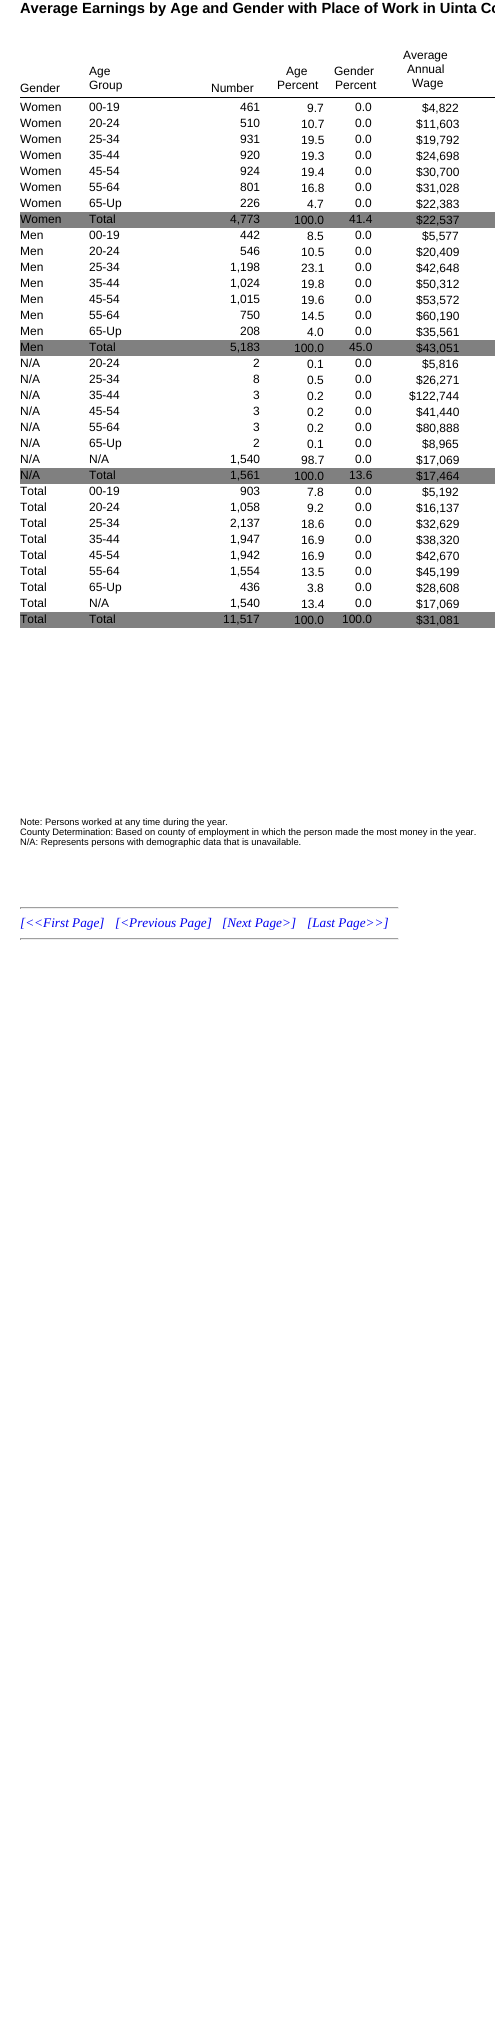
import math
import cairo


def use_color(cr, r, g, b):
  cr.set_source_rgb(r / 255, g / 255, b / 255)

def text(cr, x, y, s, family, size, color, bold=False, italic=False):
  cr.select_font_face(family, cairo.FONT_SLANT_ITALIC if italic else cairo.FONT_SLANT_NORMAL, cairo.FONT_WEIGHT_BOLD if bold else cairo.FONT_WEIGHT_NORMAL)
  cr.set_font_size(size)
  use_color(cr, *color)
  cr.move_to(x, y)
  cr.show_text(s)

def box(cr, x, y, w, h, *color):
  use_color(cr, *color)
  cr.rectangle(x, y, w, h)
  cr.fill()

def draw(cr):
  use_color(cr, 255, 255, 255)
  cr.paint()
  box(cr, 20, 97, 475, 1, 0, 0, 0)
  box(cr, 20, 212, 475, 16, 128, 128, 128)
  box(cr, 20, 340, 475, 16, 128, 128, 128)
  box(cr, 20, 468, 475, 16, 128, 128, 128)
  box(cr, 20, 612, 475, 16, 128, 128, 128)
  box(cr, 20, 907, 379, 1, 159, 159, 159)
  box(cr, 398, 907, 1, 2, 238, 238, 238)
  box(cr, 20, 908, 379, 1, 238, 238, 238)
  box(cr, 20, 907, 1, 2, 159, 159, 159)
  box(cr, 20, 938, 379, 1, 159, 159, 159)
  box(cr, 398, 938, 1, 2, 238, 238, 238)
  box(cr, 20, 939, 379, 1, 238, 238, 238)
  box(cr, 20, 938, 1, 2, 159, 159, 159)
  text(cr, 20, 13, "Average Earnings by Age and Gender with Place of Work in Uinta Co", "Liberation Sans", 14.7, (0, 0, 0), bold=True)
  text(cr, 20, 92, "Gender", "Liberation Sans", 12, (0, 0, 0))
  text(cr, 89, 75, "Age", "Liberation Sans", 12, (0, 0, 0))
  text(cr, 89, 89, "Group", "Liberation Sans", 12, (0, 0, 0))
  text(cr, 211, 92, "Number", "Liberation Sans", 12, (0, 0, 0))
  text(cr, 286, 75, "Age", "Liberation Sans", 12, (0, 0, 0))
  text(cr, 277, 89, "Percent", "Liberation Sans", 12, (0, 0, 0))
  text(cr, 334, 75, "Gender", "Liberation Sans", 12, (0, 0, 0))
  text(cr, 335, 89, "Percent", "Liberation Sans", 12, (0, 0, 0))
  text(cr, 403, 59, "Average", "Liberation Sans", 12, (0, 0, 0))
  text(cr, 407, 73, "Annual", "Liberation Sans", 12, (0, 0, 0))
  text(cr, 412, 87, "Wage", "Liberation Sans", 12, (0, 0, 0))
  text(cr, 20, 111, "Women", "Liberation Sans", 12, (0, 0, 0))
  text(cr, 89, 111, "00-19", "Liberation Sans", 12, (0, 0, 0))
  text(cr, 240, 111, "461", "Liberation Sans", 12, (0, 0, 0))
  text(cr, 307, 112, "9.7", "Liberation Sans", 12, (0, 0, 0))
  text(cr, 355, 111, "0.0", "Liberation Sans", 12, (0, 0, 0))
  text(cr, 422, 112, "$4,822", "Liberation Sans", 12, (0, 0, 0))
  text(cr, 20, 127, "Women", "Liberation Sans", 12, (0, 0, 0))
  text(cr, 89, 127, "20-24", "Liberation Sans", 12, (0, 0, 0))
  text(cr, 240, 127, "510", "Liberation Sans", 12, (0, 0, 0))
  text(cr, 301, 128, "10.7", "Liberation Sans", 12, (0, 0, 0))
  text(cr, 355, 127, "0.0", "Liberation Sans", 12, (0, 0, 0))
  text(cr, 416, 128, "$11,603", "Liberation Sans", 12, (0, 0, 0))
  text(cr, 20, 143, "Women", "Liberation Sans", 12, (0, 0, 0))
  text(cr, 89, 143, "25-34", "Liberation Sans", 12, (0, 0, 0))
  text(cr, 240, 143, "931", "Liberation Sans", 12, (0, 0, 0))
  text(cr, 301, 144, "19.5", "Liberation Sans", 12, (0, 0, 0))
  text(cr, 355, 143, "0.0", "Liberation Sans", 12, (0, 0, 0))
  text(cr, 416, 144, "$19,792", "Liberation Sans", 12, (0, 0, 0))
  text(cr, 20, 159, "Women", "Liberation Sans", 12, (0, 0, 0))
  text(cr, 89, 159, "35-44", "Liberation Sans", 12, (0, 0, 0))
  text(cr, 240, 159, "920", "Liberation Sans", 12, (0, 0, 0))
  text(cr, 301, 160, "19.3", "Liberation Sans", 12, (0, 0, 0))
  text(cr, 355, 159, "0.0", "Liberation Sans", 12, (0, 0, 0))
  text(cr, 416, 160, "$24,698", "Liberation Sans", 12, (0, 0, 0))
  text(cr, 20, 175, "Women", "Liberation Sans", 12, (0, 0, 0))
  text(cr, 89, 175, "45-54", "Liberation Sans", 12, (0, 0, 0))
  text(cr, 240, 175, "924", "Liberation Sans", 12, (0, 0, 0))
  text(cr, 301, 176, "19.4", "Liberation Sans", 12, (0, 0, 0))
  text(cr, 355, 175, "0.0", "Liberation Sans", 12, (0, 0, 0))
  text(cr, 416, 176, "$30,700", "Liberation Sans", 12, (0, 0, 0))
  text(cr, 20, 191, "Women", "Liberation Sans", 12, (0, 0, 0))
  text(cr, 89, 191, "55-64", "Liberation Sans", 12, (0, 0, 0))
  text(cr, 240, 191, "801", "Liberation Sans", 12, (0, 0, 0))
  text(cr, 301, 192, "16.8", "Liberation Sans", 12, (0, 0, 0))
  text(cr, 355, 191, "0.0", "Liberation Sans", 12, (0, 0, 0))
  text(cr, 416, 192, "$31,028", "Liberation Sans", 12, (0, 0, 0))
  text(cr, 20, 207, "Women", "Liberation Sans", 12, (0, 0, 0))
  text(cr, 89, 207, "65-Up", "Liberation Sans", 12, (0, 0, 0))
  text(cr, 240, 207, "226", "Liberation Sans", 12, (0, 0, 0))
  text(cr, 307, 208, "4.7", "Liberation Sans", 12, (0, 0, 0))
  text(cr, 355, 207, "0.0", "Liberation Sans", 12, (0, 0, 0))
  text(cr, 416, 208, "$22,383", "Liberation Sans", 12, (0, 0, 0))
  text(cr, 20, 223, "Women", "Liberation Sans", 12, (0, 0, 0))
  text(cr, 89, 223, "Total", "Liberation Sans", 12, (0, 0, 0))
  text(cr, 230, 223, "4,773", "Liberation Sans", 12, (0, 0, 0))
  text(cr, 294, 224, "100.0", "Liberation Sans", 12, (0, 0, 0))
  text(cr, 349, 223, "41.4", "Liberation Sans", 12, (0, 0, 0))
  text(cr, 416, 224, "$22,537", "Liberation Sans", 12, (0, 0, 0))
  text(cr, 20, 239, "Men", "Liberation Sans", 12, (0, 0, 0))
  text(cr, 89, 239, "00-19", "Liberation Sans", 12, (0, 0, 0))
  text(cr, 240, 239, "442", "Liberation Sans", 12, (0, 0, 0))
  text(cr, 307, 240, "8.5", "Liberation Sans", 12, (0, 0, 0))
  text(cr, 355, 239, "0.0", "Liberation Sans", 12, (0, 0, 0))
  text(cr, 422, 240, "$5,577", "Liberation Sans", 12, (0, 0, 0))
  text(cr, 20, 255, "Men", "Liberation Sans", 12, (0, 0, 0))
  text(cr, 89, 255, "20-24", "Liberation Sans", 12, (0, 0, 0))
  text(cr, 240, 255, "546", "Liberation Sans", 12, (0, 0, 0))
  text(cr, 301, 256, "10.5", "Liberation Sans", 12, (0, 0, 0))
  text(cr, 355, 255, "0.0", "Liberation Sans", 12, (0, 0, 0))
  text(cr, 416, 256, "$20,409", "Liberation Sans", 12, (0, 0, 0))
  text(cr, 20, 271, "Men", "Liberation Sans", 12, (0, 0, 0))
  text(cr, 89, 271, "25-34", "Liberation Sans", 12, (0, 0, 0))
  text(cr, 230, 271, "1,198", "Liberation Sans", 12, (0, 0, 0))
  text(cr, 301, 272, "23.1", "Liberation Sans", 12, (0, 0, 0))
  text(cr, 355, 271, "0.0", "Liberation Sans", 12, (0, 0, 0))
  text(cr, 416, 272, "$42,648", "Liberation Sans", 12, (0, 0, 0))
  text(cr, 20, 287, "Men", "Liberation Sans", 12, (0, 0, 0))
  text(cr, 89, 287, "35-44", "Liberation Sans", 12, (0, 0, 0))
  text(cr, 230, 287, "1,024", "Liberation Sans", 12, (0, 0, 0))
  text(cr, 301, 288, "19.8", "Liberation Sans", 12, (0, 0, 0))
  text(cr, 355, 287, "0.0", "Liberation Sans", 12, (0, 0, 0))
  text(cr, 416, 288, "$50,312", "Liberation Sans", 12, (0, 0, 0))
  text(cr, 20, 303, "Men", "Liberation Sans", 12, (0, 0, 0))
  text(cr, 89, 303, "45-54", "Liberation Sans", 12, (0, 0, 0))
  text(cr, 230, 303, "1,015", "Liberation Sans", 12, (0, 0, 0))
  text(cr, 301, 304, "19.6", "Liberation Sans", 12, (0, 0, 0))
  text(cr, 355, 303, "0.0", "Liberation Sans", 12, (0, 0, 0))
  text(cr, 416, 304, "$53,572", "Liberation Sans", 12, (0, 0, 0))
  text(cr, 20, 319, "Men", "Liberation Sans", 12, (0, 0, 0))
  text(cr, 89, 319, "55-64", "Liberation Sans", 12, (0, 0, 0))
  text(cr, 240, 319, "750", "Liberation Sans", 12, (0, 0, 0))
  text(cr, 301, 320, "14.5", "Liberation Sans", 12, (0, 0, 0))
  text(cr, 355, 319, "0.0", "Liberation Sans", 12, (0, 0, 0))
  text(cr, 416, 320, "$60,190", "Liberation Sans", 12, (0, 0, 0))
  text(cr, 20, 335, "Men", "Liberation Sans", 12, (0, 0, 0))
  text(cr, 89, 335, "65-Up", "Liberation Sans", 12, (0, 0, 0))
  text(cr, 240, 335, "208", "Liberation Sans", 12, (0, 0, 0))
  text(cr, 307, 336, "4.0", "Liberation Sans", 12, (0, 0, 0))
  text(cr, 355, 335, "0.0", "Liberation Sans", 12, (0, 0, 0))
  text(cr, 416, 336, "$35,561", "Liberation Sans", 12, (0, 0, 0))
  text(cr, 20, 351, "Men", "Liberation Sans", 12, (0, 0, 0))
  text(cr, 89, 351, "Total", "Liberation Sans", 12, (0, 0, 0))
  text(cr, 230, 351, "5,183", "Liberation Sans", 12, (0, 0, 0))
  text(cr, 294, 352, "100.0", "Liberation Sans", 12, (0, 0, 0))
  text(cr, 349, 351, "45.0", "Liberation Sans", 12, (0, 0, 0))
  text(cr, 416, 352, "$43,051", "Liberation Sans", 12, (0, 0, 0))
  text(cr, 20, 367, "N/A", "Liberation Sans", 12, (0, 0, 0))
  text(cr, 89, 367, "20-24", "Liberation Sans", 12, (0, 0, 0))
  text(cr, 253, 367, "2", "Liberation Sans", 12, (0, 0, 0))
  text(cr, 307, 368, "0.1", "Liberation Sans", 12, (0, 0, 0))
  text(cr, 355, 367, "0.0", "Liberation Sans", 12, (0, 0, 0))
  text(cr, 422, 368, "$5,816", "Liberation Sans", 12, (0, 0, 0))
  text(cr, 20, 383, "N/A", "Liberation Sans", 12, (0, 0, 0))
  text(cr, 89, 383, "25-34", "Liberation Sans", 12, (0, 0, 0))
  text(cr, 253, 383, "8", "Liberation Sans", 12, (0, 0, 0))
  text(cr, 307, 384, "0.5", "Liberation Sans", 12, (0, 0, 0))
  text(cr, 355, 383, "0.0", "Liberation Sans", 12, (0, 0, 0))
  text(cr, 416, 384, "$26,271", "Liberation Sans", 12, (0, 0, 0))
  text(cr, 20, 399, "N/A", "Liberation Sans", 12, (0, 0, 0))
  text(cr, 89, 399, "35-44", "Liberation Sans", 12, (0, 0, 0))
  text(cr, 253, 399, "3", "Liberation Sans", 12, (0, 0, 0))
  text(cr, 307, 400, "0.2", "Liberation Sans", 12, (0, 0, 0))
  text(cr, 355, 399, "0.0", "Liberation Sans", 12, (0, 0, 0))
  text(cr, 409, 400, "$122,744", "Liberation Sans", 12, (0, 0, 0))
  text(cr, 20, 415, "N/A", "Liberation Sans", 12, (0, 0, 0))
  text(cr, 89, 415, "45-54", "Liberation Sans", 12, (0, 0, 0))
  text(cr, 253, 415, "3", "Liberation Sans", 12, (0, 0, 0))
  text(cr, 307, 416, "0.2", "Liberation Sans", 12, (0, 0, 0))
  text(cr, 355, 415, "0.0", "Liberation Sans", 12, (0, 0, 0))
  text(cr, 416, 416, "$41,440", "Liberation Sans", 12, (0, 0, 0))
  text(cr, 20, 431, "N/A", "Liberation Sans", 12, (0, 0, 0))
  text(cr, 89, 431, "55-64", "Liberation Sans", 12, (0, 0, 0))
  text(cr, 253, 431, "3", "Liberation Sans", 12, (0, 0, 0))
  text(cr, 307, 432, "0.2", "Liberation Sans", 12, (0, 0, 0))
  text(cr, 355, 431, "0.0", "Liberation Sans", 12, (0, 0, 0))
  text(cr, 416, 432, "$80,888", "Liberation Sans", 12, (0, 0, 0))
  text(cr, 20, 447, "N/A", "Liberation Sans", 12, (0, 0, 0))
  text(cr, 89, 447, "65-Up", "Liberation Sans", 12, (0, 0, 0))
  text(cr, 253, 447, "2", "Liberation Sans", 12, (0, 0, 0))
  text(cr, 307, 448, "0.1", "Liberation Sans", 12, (0, 0, 0))
  text(cr, 355, 447, "0.0", "Liberation Sans", 12, (0, 0, 0))
  text(cr, 422, 448, "$8,965", "Liberation Sans", 12, (0, 0, 0))
  text(cr, 20, 463, "N/A", "Liberation Sans", 12, (0, 0, 0))
  text(cr, 89, 463, "N/A", "Liberation Sans", 12, (0, 0, 0))
  text(cr, 230, 463, "1,540", "Liberation Sans", 12, (0, 0, 0))
  text(cr, 301, 464, "98.7", "Liberation Sans", 12, (0, 0, 0))
  text(cr, 355, 463, "0.0", "Liberation Sans", 12, (0, 0, 0))
  text(cr, 416, 464, "$17,069", "Liberation Sans", 12, (0, 0, 0))
  text(cr, 20, 479, "N/A", "Liberation Sans", 12, (0, 0, 0))
  text(cr, 89, 479, "Total", "Liberation Sans", 12, (0, 0, 0))
  text(cr, 230, 479, "1,561", "Liberation Sans", 12, (0, 0, 0))
  text(cr, 294, 480, "100.0", "Liberation Sans", 12, (0, 0, 0))
  text(cr, 349, 479, "13.6", "Liberation Sans", 12, (0, 0, 0))
  text(cr, 416, 480, "$17,464", "Liberation Sans", 12, (0, 0, 0))
  text(cr, 20, 495, "Total", "Liberation Sans", 12, (0, 0, 0))
  text(cr, 89, 495, "00-19", "Liberation Sans", 12, (0, 0, 0))
  text(cr, 240, 495, "903", "Liberation Sans", 12, (0, 0, 0))
  text(cr, 307, 496, "7.8", "Liberation Sans", 12, (0, 0, 0))
  text(cr, 355, 495, "0.0", "Liberation Sans", 12, (0, 0, 0))
  text(cr, 422, 496, "$5,192", "Liberation Sans", 12, (0, 0, 0))
  text(cr, 20, 511, "Total", "Liberation Sans", 12, (0, 0, 0))
  text(cr, 89, 511, "20-24", "Liberation Sans", 12, (0, 0, 0))
  text(cr, 230, 511, "1,058", "Liberation Sans", 12, (0, 0, 0))
  text(cr, 307, 512, "9.2", "Liberation Sans", 12, (0, 0, 0))
  text(cr, 355, 511, "0.0", "Liberation Sans", 12, (0, 0, 0))
  text(cr, 416, 512, "$16,137", "Liberation Sans", 12, (0, 0, 0))
  text(cr, 20, 527, "Total", "Liberation Sans", 12, (0, 0, 0))
  text(cr, 89, 527, "25-34", "Liberation Sans", 12, (0, 0, 0))
  text(cr, 230, 527, "2,137", "Liberation Sans", 12, (0, 0, 0))
  text(cr, 301, 528, "18.6", "Liberation Sans", 12, (0, 0, 0))
  text(cr, 355, 527, "0.0", "Liberation Sans", 12, (0, 0, 0))
  text(cr, 416, 528, "$32,629", "Liberation Sans", 12, (0, 0, 0))
  text(cr, 20, 543, "Total", "Liberation Sans", 12, (0, 0, 0))
  text(cr, 89, 543, "35-44", "Liberation Sans", 12, (0, 0, 0))
  text(cr, 230, 543, "1,947", "Liberation Sans", 12, (0, 0, 0))
  text(cr, 301, 544, "16.9", "Liberation Sans", 12, (0, 0, 0))
  text(cr, 355, 543, "0.0", "Liberation Sans", 12, (0, 0, 0))
  text(cr, 416, 544, "$38,320", "Liberation Sans", 12, (0, 0, 0))
  text(cr, 20, 559, "Total", "Liberation Sans", 12, (0, 0, 0))
  text(cr, 89, 559, "45-54", "Liberation Sans", 12, (0, 0, 0))
  text(cr, 230, 559, "1,942", "Liberation Sans", 12, (0, 0, 0))
  text(cr, 301, 560, "16.9", "Liberation Sans", 12, (0, 0, 0))
  text(cr, 355, 559, "0.0", "Liberation Sans", 12, (0, 0, 0))
  text(cr, 416, 560, "$42,670", "Liberation Sans", 12, (0, 0, 0))
  text(cr, 20, 575, "Total", "Liberation Sans", 12, (0, 0, 0))
  text(cr, 89, 575, "55-64", "Liberation Sans", 12, (0, 0, 0))
  text(cr, 230, 575, "1,554", "Liberation Sans", 12, (0, 0, 0))
  text(cr, 301, 576, "13.5", "Liberation Sans", 12, (0, 0, 0))
  text(cr, 355, 575, "0.0", "Liberation Sans", 12, (0, 0, 0))
  text(cr, 416, 576, "$45,199", "Liberation Sans", 12, (0, 0, 0))
  text(cr, 20, 591, "Total", "Liberation Sans", 12, (0, 0, 0))
  text(cr, 89, 591, "65-Up", "Liberation Sans", 12, (0, 0, 0))
  text(cr, 240, 591, "436", "Liberation Sans", 12, (0, 0, 0))
  text(cr, 307, 592, "3.8", "Liberation Sans", 12, (0, 0, 0))
  text(cr, 355, 591, "0.0", "Liberation Sans", 12, (0, 0, 0))
  text(cr, 416, 592, "$28,608", "Liberation Sans", 12, (0, 0, 0))
  text(cr, 20, 607, "Total", "Liberation Sans", 12, (0, 0, 0))
  text(cr, 89, 607, "N/A", "Liberation Sans", 12, (0, 0, 0))
  text(cr, 230, 607, "1,540", "Liberation Sans", 12, (0, 0, 0))
  text(cr, 301, 608, "13.4", "Liberation Sans", 12, (0, 0, 0))
  text(cr, 355, 607, "0.0", "Liberation Sans", 12, (0, 0, 0))
  text(cr, 416, 608, "$17,069", "Liberation Sans", 12, (0, 0, 0))
  text(cr, 20, 623, "Total", "Liberation Sans", 12, (0, 0, 0))
  text(cr, 89, 623, "Total", "Liberation Sans", 12, (0, 0, 0))
  text(cr, 223, 623, "11,517", "Liberation Sans", 12, (0, 0, 0))
  text(cr, 294, 624, "100.0", "Liberation Sans", 12, (0, 0, 0))
  text(cr, 342, 623, "100.0", "Liberation Sans", 12, (0, 0, 0))
  text(cr, 416, 624, "$31,081", "Liberation Sans", 12, (0, 0, 0))
  text(cr, 20, 825, "Note: Persons worked at any time during the year.", "Liberation Sans", 9.35, (0, 0, 0))
  text(cr, 20, 835, "County Determination: Based on county of employment in which the person made the most money in the year.", "Liberation Sans", 9.35, (0, 0, 0))
  text(cr, 20, 845, "N/A: Represents persons with demographic data that is unavailable.", "Liberation Sans", 9.35, (0, 0, 0))
  text(cr, 20, 927, "[<<First Page]", "Liberation Serif", 13.25, (0, 0, 238), italic=True)
  text(cr, 115, 927, "[<Previous Page]", "Liberation Serif", 13.25, (0, 0, 238), italic=True)
  text(cr, 222, 927, "[Next Page>]", "Liberation Serif", 13.25, (0, 0, 238), italic=True)
  text(cr, 307, 927, "[Last Page>>]", "Liberation Serif", 13.25, (0, 0, 238), italic=True)


surface = cairo.ImageSurface(cairo.FORMAT_RGB24, 495, 2030)
cr = cairo.Context(surface)
options = cairo.FontOptions()
options.set_hint_metrics(cairo.HINT_METRICS_OFF)
options.set_hint_style(cairo.HINT_STYLE_NONE)
cr.set_font_options(options)
cr.set_miter_limit(4)
draw(cr)
surface.write_to_png("out.png")
